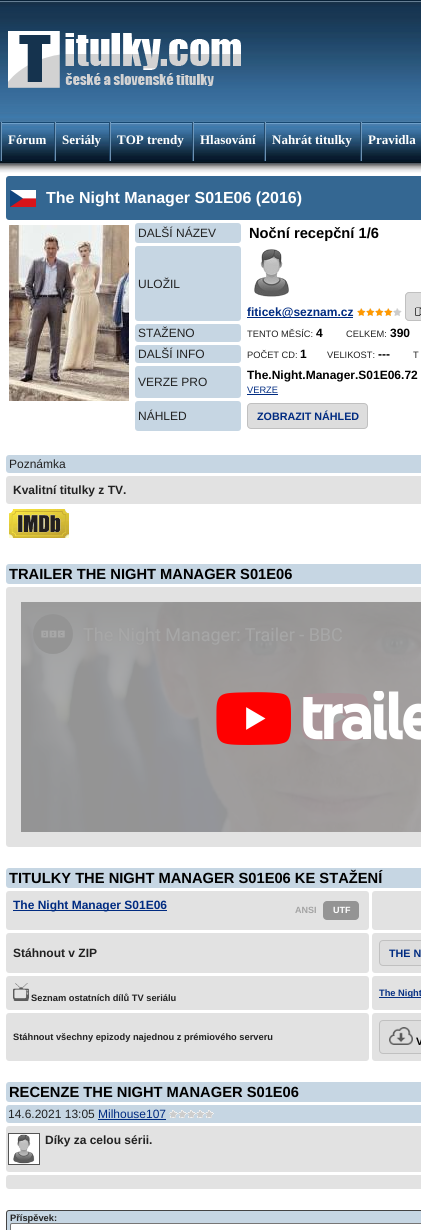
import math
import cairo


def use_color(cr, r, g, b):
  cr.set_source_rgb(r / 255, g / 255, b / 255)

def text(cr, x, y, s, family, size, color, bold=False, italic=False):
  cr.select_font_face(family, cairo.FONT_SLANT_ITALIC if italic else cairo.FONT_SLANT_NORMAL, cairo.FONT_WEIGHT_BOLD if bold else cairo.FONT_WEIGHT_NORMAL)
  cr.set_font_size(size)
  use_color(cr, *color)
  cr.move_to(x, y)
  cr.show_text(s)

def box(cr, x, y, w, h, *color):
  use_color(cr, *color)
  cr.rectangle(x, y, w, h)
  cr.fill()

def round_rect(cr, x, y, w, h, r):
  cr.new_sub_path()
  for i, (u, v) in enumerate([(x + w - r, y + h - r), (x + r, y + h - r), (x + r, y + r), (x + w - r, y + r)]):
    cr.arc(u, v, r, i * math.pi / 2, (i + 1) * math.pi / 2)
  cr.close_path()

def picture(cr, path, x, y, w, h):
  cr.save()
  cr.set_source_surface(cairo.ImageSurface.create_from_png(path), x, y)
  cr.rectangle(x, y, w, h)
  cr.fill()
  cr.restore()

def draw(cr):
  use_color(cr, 255, 255, 255)
  cr.paint()
  picture(cr, "img_01.png", 0, 0, 421, 173)
  picture(cr, "img_02.png", 8, 31, 233, 57)
  picture(cr, "img_03.png", 0, 122, 2, 39)
  picture(cr, "img_03.png", 54, 122, 2, 39)
  picture(cr, "img_03.png", 109, 122, 2, 39)
  picture(cr, "img_03.png", 192, 122, 2, 39)
  picture(cr, "img_03.png", 264, 122, 2, 39)
  picture(cr, "img_03.png", 360, 122, 2, 39)
  use_color(cr, 52, 103, 146)
  round_rect(cr, 6, 176, 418, 44, 3)
  cr.fill()
  picture(cr, "img_04.png", 10, 190, 26, 17)
  picture(cr, "img_05.png", 9, 225, 120, 176)
  use_color(cr, 198, 214, 227)
  round_rect(cr, 135, 223, 106, 20, 3)
  cr.fill()
  round_rect(cr, 135, 246, 106, 75, 3)
  cr.fill()
  picture(cr, "img_06.png", 254, 249, 35, 48)
  use_color(cr, 221, 221, 221)
  cr.new_path()
  cr.move_to(409, 292)
  cr.line_to(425, 292)
  cr.line_to(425, 321)
  cr.line_to(409, 321)
  cr.curve_to(407, 321, 405, 319, 405, 317)
  cr.line_to(405, 296)
  cr.curve_to(405, 294, 407, 292, 409, 292)
  cr.close_path()
  cr.fill()
  box(cr, 247, 317, 106, 1, 0, 43, 129)
  use_color(cr, 192, 192, 192)
  cr.set_fill_rule(cairo.FILL_RULE_EVEN_ODD)
  cr.new_path()
  cr.move_to(409, 292)
  cr.line_to(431, 292)
  cr.line_to(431, 321)
  cr.line_to(409, 321)
  cr.curve_to(407, 321, 405, 319, 405, 317)
  cr.line_to(405, 296)
  cr.curve_to(405, 294, 407, 292, 409, 292)
  cr.close_path()
  cr.move_to(409, 293)
  cr.line_to(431, 293)
  cr.line_to(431, 320)
  cr.line_to(409, 320)
  cr.curve_to(407.5, 320, 406, 318.5, 406, 317)
  cr.line_to(406, 296)
  cr.curve_to(406, 294.5, 407.5, 293, 409, 293)
  cr.close_path()
  cr.fill()
  picture(cr, "img_07.png", 357, 308, 45, 8)
  picture(cr, "img_08.png", 415, 307, 6, 9)
  use_color(cr, 198, 214, 227)
  round_rect(cr, 135, 324, 106, 18, 3)
  cr.fill()
  round_rect(cr, 135, 345, 106, 18, 3)
  cr.fill()
  round_rect(cr, 135, 366, 106, 32, 3)
  cr.fill()
  box(cr, 247, 394, 31, 1, 0, 43, 129)
  use_color(cr, 198, 214, 227)
  round_rect(cr, 135, 401, 106, 30, 3)
  cr.fill()
  use_color(cr, 221, 221, 221)
  round_rect(cr, 247.5, 403.5, 120, 25, 3.5)
  cr.fill_preserve()
  use_color(cr, 192, 192, 192)
  cr.set_line_width(1)
  cr.stroke()
  use_color(cr, 198, 214, 227)
  round_rect(cr, 6, 455, 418, 18, 3)
  cr.fill()
  use_color(cr, 226, 226, 226)
  round_rect(cr, 6, 476, 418, 28, 3)
  cr.fill()
  picture(cr, "img_09.png", 9, 509, 60, 29)
  use_color(cr, 198, 214, 227)
  round_rect(cr, 6, 564, 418, 20, 3)
  cr.fill()
  use_color(cr, 226, 226, 226)
  round_rect(cr, 6, 587, 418, 260, 3)
  cr.fill()
  picture(cr, "img_10.png", 21, 602, 400, 230)
  picture(cr, "img_11.png", 216, 691, 205, 54)
  use_color(cr, 198, 214, 227)
  round_rect(cr, 6, 868, 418, 20, 3)
  cr.fill()
  use_color(cr, 226, 226, 226)
  round_rect(cr, 6, 891, 363, 39, 3)
  cr.fill()
  box(cr, 13, 910, 154, 1, 0, 43, 129)
  use_color(cr, 148, 148, 148)
  round_rect(cr, 323, 901, 36, 19, 4)
  cr.fill()
  use_color(cr, 226, 226, 226)
  round_rect(cr, 372, 891, 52, 39, 3)
  cr.fill()
  round_rect(cr, 6, 933, 363, 40, 3)
  cr.fill()
  round_rect(cr, 372, 933, 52, 40, 3)
  cr.fill()
  use_color(cr, 221, 221, 221)
  round_rect(cr, 379.5, 940.5, 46, 25, 3.5)
  cr.fill_preserve()
  use_color(cr, 192, 192, 192)
  cr.stroke()
  use_color(cr, 226, 226, 226)
  round_rect(cr, 6, 976, 363, 34, 3)
  cr.fill()
  picture(cr, "img_12.png", 13, 983, 16, 18)
  round_rect(cr, 372, 976, 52, 34, 3)
  cr.fill()
  box(cr, 379, 997, 42, 1, 8, 49, 131)
  use_color(cr, 226, 226, 226)
  round_rect(cr, 6, 1013, 363, 48, 3)
  cr.fill()
  round_rect(cr, 372, 1013, 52, 48, 3)
  cr.fill()
  use_color(cr, 221, 221, 221)
  round_rect(cr, 379.5, 1020.5, 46, 33, 3.5)
  cr.fill_preserve()
  use_color(cr, 192, 192, 192)
  cr.stroke()
  picture(cr, "img_13.png", 389, 1027, 24, 18)
  use_color(cr, 198, 214, 227)
  round_rect(cr, 6, 1082, 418, 20, 3)
  cr.fill()
  round_rect(cr, 6, 1105, 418, 18, 3)
  cr.fill()
  box(cr, 98, 1119, 68, 1, 0, 43, 129)
  picture(cr, "img_14.png", 169, 1110, 45, 8)
  use_color(cr, 226, 226, 226)
  round_rect(cr, 6, 1126, 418, 46, 3)
  cr.fill()
  cr.rectangle(8.5, 1133.5, 31, 31)
  use_color(cr, 85, 85, 85)
  cr.stroke()
  picture(cr, "img_15.png", 9, 1134, 30, 30)
  use_color(cr, 226, 226, 226)
  round_rect(cr, 6, 1175, 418, 14, 3)
  cr.fill()
  use_color(cr, 198, 214, 227)
  round_rect(cr, 6.5, 1210.5, 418, 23, 2.5)
  cr.fill_preserve()
  use_color(cr, 68, 68, 68)
  cr.stroke()
  use_color(cr, 255, 255, 255)
  round_rect(cr, 10.5, 1223.5, 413, 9, 1.5)
  cr.fill_preserve()
  use_color(cr, 118, 118, 118)
  cr.stroke()
  text(cr, 8, 144, "Fórum", "Liberation Serif", 13, (255, 255, 255), bold=True)
  text(cr, 62, 144, "Seriály", "Liberation Serif", 13, (255, 255, 255), bold=True)
  text(cr, 117, 144, "TOP trendy", "Liberation Serif", 13, (255, 255, 255), bold=True)
  text(cr, 200, 144, "Hlasování", "Liberation Serif", 13, (255, 255, 255), bold=True)
  text(cr, 272, 144, "Nahrát titulky", "Liberation Serif", 13, (255, 255, 255), bold=True)
  text(cr, 368, 144, "Pravidla", "Liberation Serif", 13, (255, 255, 255), bold=True)
  text(cr, 46, 203, "The Night Manager S01E06 (2016)", "Liberation Sans", 16, (255, 255, 255), bold=True)
  text(cr, 138, 237, "DALŠÍ NÁZEV", "Liberation Sans", 12, (34, 34, 34))
  text(cr, 249, 238, "Noční recepční 1/6", "Liberation Sans", 14.7, (0, 0, 0), bold=True)
  text(cr, 138, 288, "ULOŽIL", "Liberation Sans", 12, (34, 34, 34))
  text(cr, 247, 316, "fiticek@seznam.cz", "Liberation Sans", 12, (0, 43, 129), bold=True)
  text(cr, 138, 337, "STAŽENO", "Liberation Sans", 12, (34, 34, 34))
  text(cr, 247, 337, "TENTO MĚSÍC:", "Liberation Sans", 9.3, (34, 34, 34))
  text(cr, 316, 337, "4", "Liberation Sans", 12, (0, 0, 0), bold=True)
  text(cr, 346, 337, "CELKEM:", "Liberation Sans", 9.3, (34, 34, 34))
  text(cr, 390, 337, "390", "Liberation Sans", 12, (0, 0, 0), bold=True)
  text(cr, 138, 358, "DALŠÍ INFO", "Liberation Sans", 12, (34, 34, 34))
  text(cr, 247, 358, "POČET CD:", "Liberation Sans", 9.3, (34, 34, 34))
  text(cr, 300, 358, "1", "Liberation Sans", 12, (0, 0, 0), bold=True)
  text(cr, 327, 358, "VELIKOST:", "Liberation Sans", 9.3, (34, 34, 34))
  text(cr, 378, 358, "---", "Liberation Sans", 12, (0, 0, 0), bold=True)
  text(cr, 413, 358, "T", "Liberation Sans", 9.3, (34, 34, 34))
  text(cr, 138, 386, "VERZE PRO", "Liberation Sans", 12, (34, 34, 34))
  text(cr, 247, 379, "The.Night.Manager.S01E06.72", "Liberation Sans", 12, (0, 0, 0), bold=True)
  text(cr, 247, 393, "VERZE", "Liberation Sans", 9.3, (0, 43, 129))
  text(cr, 138, 420, "NÁHLED", "Liberation Sans", 12, (34, 34, 34))
  text(cr, 257, 420, "ZOBRAZIT NÁHLED", "Liberation Sans", 10.75, (0, 43, 129), bold=True)
  text(cr, 9, 468, "Poznámka", "Liberation Sans", 12, (34, 34, 34))
  text(cr, 13, 494, "Kvalitní titulky z TV.", "Liberation Sans", 12, (34, 34, 34), bold=True)
  text(cr, 9, 579, "TRAILER THE NIGHT MANAGER S01E06", "Liberation Sans", 14.7, (0, 0, 0), bold=True)
  text(cr, 9, 883, "TITULKY THE NIGHT MANAGER S01E06 KE STAŽENÍ", "Liberation Sans", 14.7, (0, 0, 0), bold=True)
  text(cr, 13, 909, "The Night Manager S01E06", "Liberation Sans", 12, (0, 43, 129), bold=True)
  text(cr, 295, 913, "ANSI", "Liberation Sans", 9, (163, 163, 163), bold=True)
  text(cr, 333, 913, "UTF", "Liberation Sans", 9, (255, 255, 255), bold=True)
  text(cr, 13, 957, "Stáhnout v ZIP", "Liberation Sans", 12, (34, 34, 34), bold=True)
  text(cr, 389, 957, "THE N", "Liberation Sans", 10.75, (0, 43, 129), bold=True)
  text(cr, 31, 1001, "Seznam ostatních dílů TV seriálu", "Liberation Sans", 9.3, (34, 34, 34), bold=True)
  text(cr, 379, 996, "The Night", "Liberation Sans", 9.3, (8, 49, 131), bold=True)
  text(cr, 13, 1040, "Stáhnout všechny epizody najednou z prémiového serveru", "Liberation Sans", 9.3, (34, 34, 34), bold=True)
  text(cr, 416, 1045, "V", "Liberation Sans", 10.75, (0, 0, 0), bold=True)
  text(cr, 9, 1097, "RECENZE THE NIGHT MANAGER S01E06", "Liberation Sans", 14.7, (0, 0, 0), bold=True)
  text(cr, 8, 1118, "14.6.2021 13:05", "Liberation Sans", 12, (34, 34, 34))
  text(cr, 98, 1118, "Milhouse107", "Liberation Sans", 12, (0, 43, 129))
  text(cr, 45, 1144, "Díky za celou sérii.", "Liberation Sans", 12, (34, 34, 34), bold=True)
  text(cr, 10, 1221, "Příspěvek:", "Liberation Sans", 9.3, (34, 34, 34), bold=True)


surface = cairo.ImageSurface(cairo.FORMAT_RGB24, 421, 1230)
cr = cairo.Context(surface)
options = cairo.FontOptions()
options.set_hint_metrics(cairo.HINT_METRICS_OFF)
options.set_hint_style(cairo.HINT_STYLE_NONE)
cr.set_font_options(options)
cr.set_miter_limit(4)
draw(cr)
surface.write_to_png("out.png")
